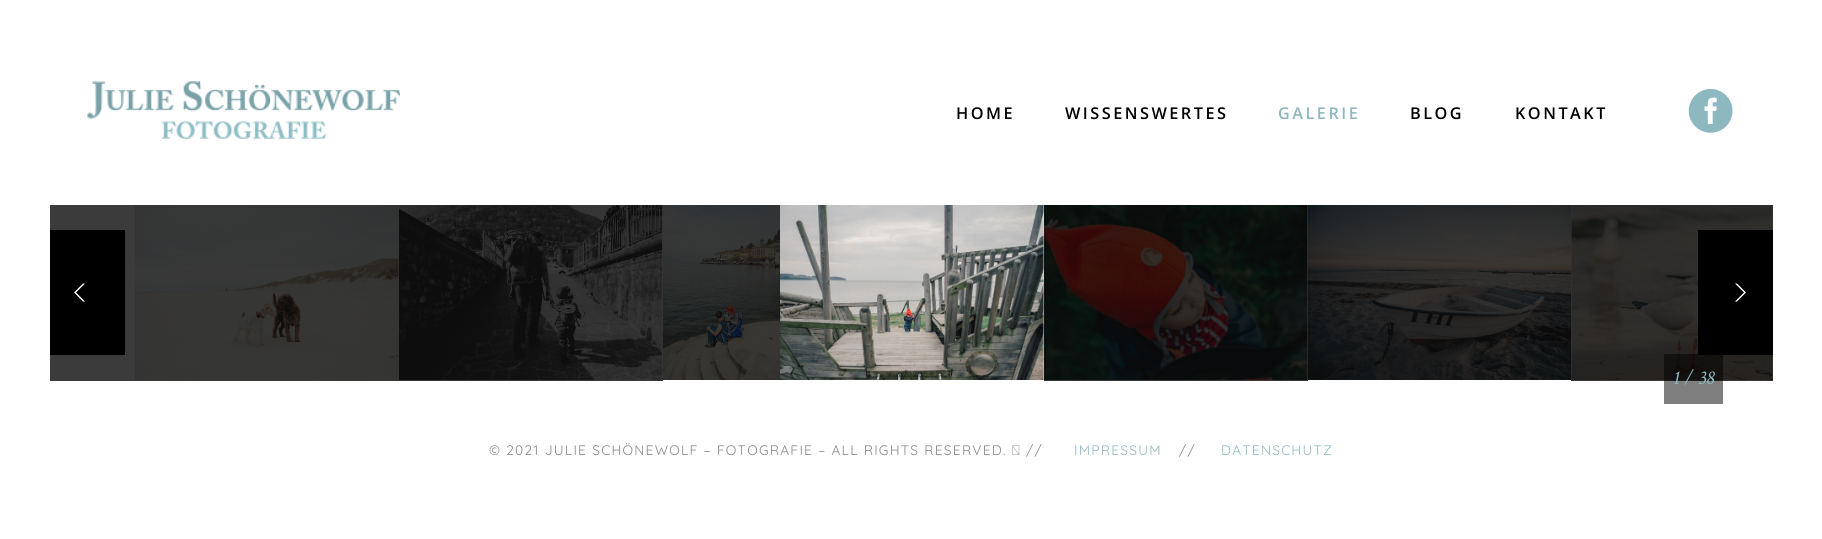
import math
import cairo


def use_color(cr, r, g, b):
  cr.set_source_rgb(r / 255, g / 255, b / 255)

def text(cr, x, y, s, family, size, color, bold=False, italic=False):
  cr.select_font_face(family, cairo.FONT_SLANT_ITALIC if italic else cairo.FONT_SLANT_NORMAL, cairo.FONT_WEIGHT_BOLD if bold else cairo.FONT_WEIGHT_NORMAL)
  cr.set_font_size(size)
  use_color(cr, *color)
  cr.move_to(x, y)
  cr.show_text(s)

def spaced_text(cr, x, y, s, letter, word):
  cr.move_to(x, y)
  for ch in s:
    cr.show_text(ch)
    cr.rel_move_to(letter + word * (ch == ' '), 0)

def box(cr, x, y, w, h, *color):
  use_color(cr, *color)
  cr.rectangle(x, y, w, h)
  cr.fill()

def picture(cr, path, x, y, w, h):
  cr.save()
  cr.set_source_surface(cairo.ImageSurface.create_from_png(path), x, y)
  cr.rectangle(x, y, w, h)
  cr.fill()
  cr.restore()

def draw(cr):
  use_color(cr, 255, 255, 255)
  cr.paint()
  picture(cr, "img_01.png", 87, 81, 313, 58)
  picture(cr, "img_02.png", 1688, 89, 45, 44)
  box(cr, 50, 205, 85, 176, 59, 59, 59)
  picture(cr, "img_03.png", 135, 205, 264, 175)
  picture(cr, "img_04.png", 398, 205, 265, 175)
  cr.set_source_rgba(0.039, 0.039, 0.039, 0.8)
  cr.rectangle(135, 205, 264, 176)
  cr.fill()
  picture(cr, "img_05.png", 662, 205, 118, 175)
  cr.rectangle(399, 205, 264, 176)
  cr.fill()
  picture(cr, "img_06.png", 780, 205, 264, 175)
  picture(cr, "img_07.png", 1043, 205, 265, 175)
  picture(cr, "img_08.png", 1307, 205, 265, 175)
  cr.rectangle(1044, 205, 264, 176)
  cr.fill()
  picture(cr, "img_09.png", 1571, 205, 202, 175)
  cr.rectangle(1571, 205, 202, 176)
  cr.fill()
  box(cr, 50, 230, 75, 125, 0, 0, 0)
  use_color(cr, 255, 255, 255)
  cr.new_path()
  cr.move_to(74, 292.5)
  cr.line_to(83, 301.5)
  cr.line_to(85, 301.5)
  cr.line_to(76, 292.5)
  cr.line_to(85, 283.5)
  cr.line_to(83, 283.5)
  cr.close_path()
  cr.fill()
  box(cr, 1698, 230, 75, 125, 0, 0, 0)
  use_color(cr, 255, 255, 255)
  cr.new_path()
  cr.move_to(1746, 292.5)
  cr.line_to(1737, 283.5)
  cr.line_to(1735, 283.5)
  cr.line_to(1744, 292.5)
  cr.line_to(1735, 301.5)
  cr.line_to(1737, 301.5)
  cr.close_path()
  cr.fill()
  cr.set_source_rgba(0, 0, 0, 0.5)
  cr.rectangle(1664, 354, 59, 50)
  cr.fill()
  cr.select_font_face("Open Sans SemiBold")
  cr.set_font_size(16.25)
  use_color(cr, 0, 0, 0)
  spaced_text(cr, 956, 119, "HOME", 2.5, 0)
  spaced_text(cr, 1065, 119, "WISSENSWERTES", 2.5, 0)
  use_color(cr, 141, 184, 191)
  spaced_text(cr, 1278, 119, "GALERIE", 2.5, 0)
  use_color(cr, 0, 0, 0)
  spaced_text(cr, 1410, 119, "BLOG", 2.5, 0)
  spaced_text(cr, 1515, 119, "KONTAKT", 2.5, 0)
  text(cr, 1673, 384, "1 / 38", "Crimson Text", 20, (141, 184, 191), italic=True)
  cr.select_font_face("Quicksand Light")
  cr.set_font_size(13.75)
  use_color(cr, 136, 136, 136)
  spaced_text(cr, 489, 455, "© 2021 JULIE SCHÖNEWOLF – FOTOGRAFIE – ALL RIGHTS RESERVED.   //", 1.25, 0)
  use_color(cr, 141, 184, 191)
  spaced_text(cr, 1074, 455, "IMPRESSUM", 1.25, 0)
  use_color(cr, 136, 136, 136)
  spaced_text(cr, 1179, 455, "//", 1.25, 0)
  use_color(cr, 141, 184, 191)
  spaced_text(cr, 1221, 455, "DATENSCHUTZ", 1.25, 0)


surface = cairo.ImageSurface(cairo.FORMAT_RGB24, 1822, 539)
cr = cairo.Context(surface)
options = cairo.FontOptions()
options.set_hint_metrics(cairo.HINT_METRICS_OFF)
options.set_hint_style(cairo.HINT_STYLE_NONE)
cr.set_font_options(options)
cr.set_miter_limit(4)
draw(cr)
surface.write_to_png("out.png")
